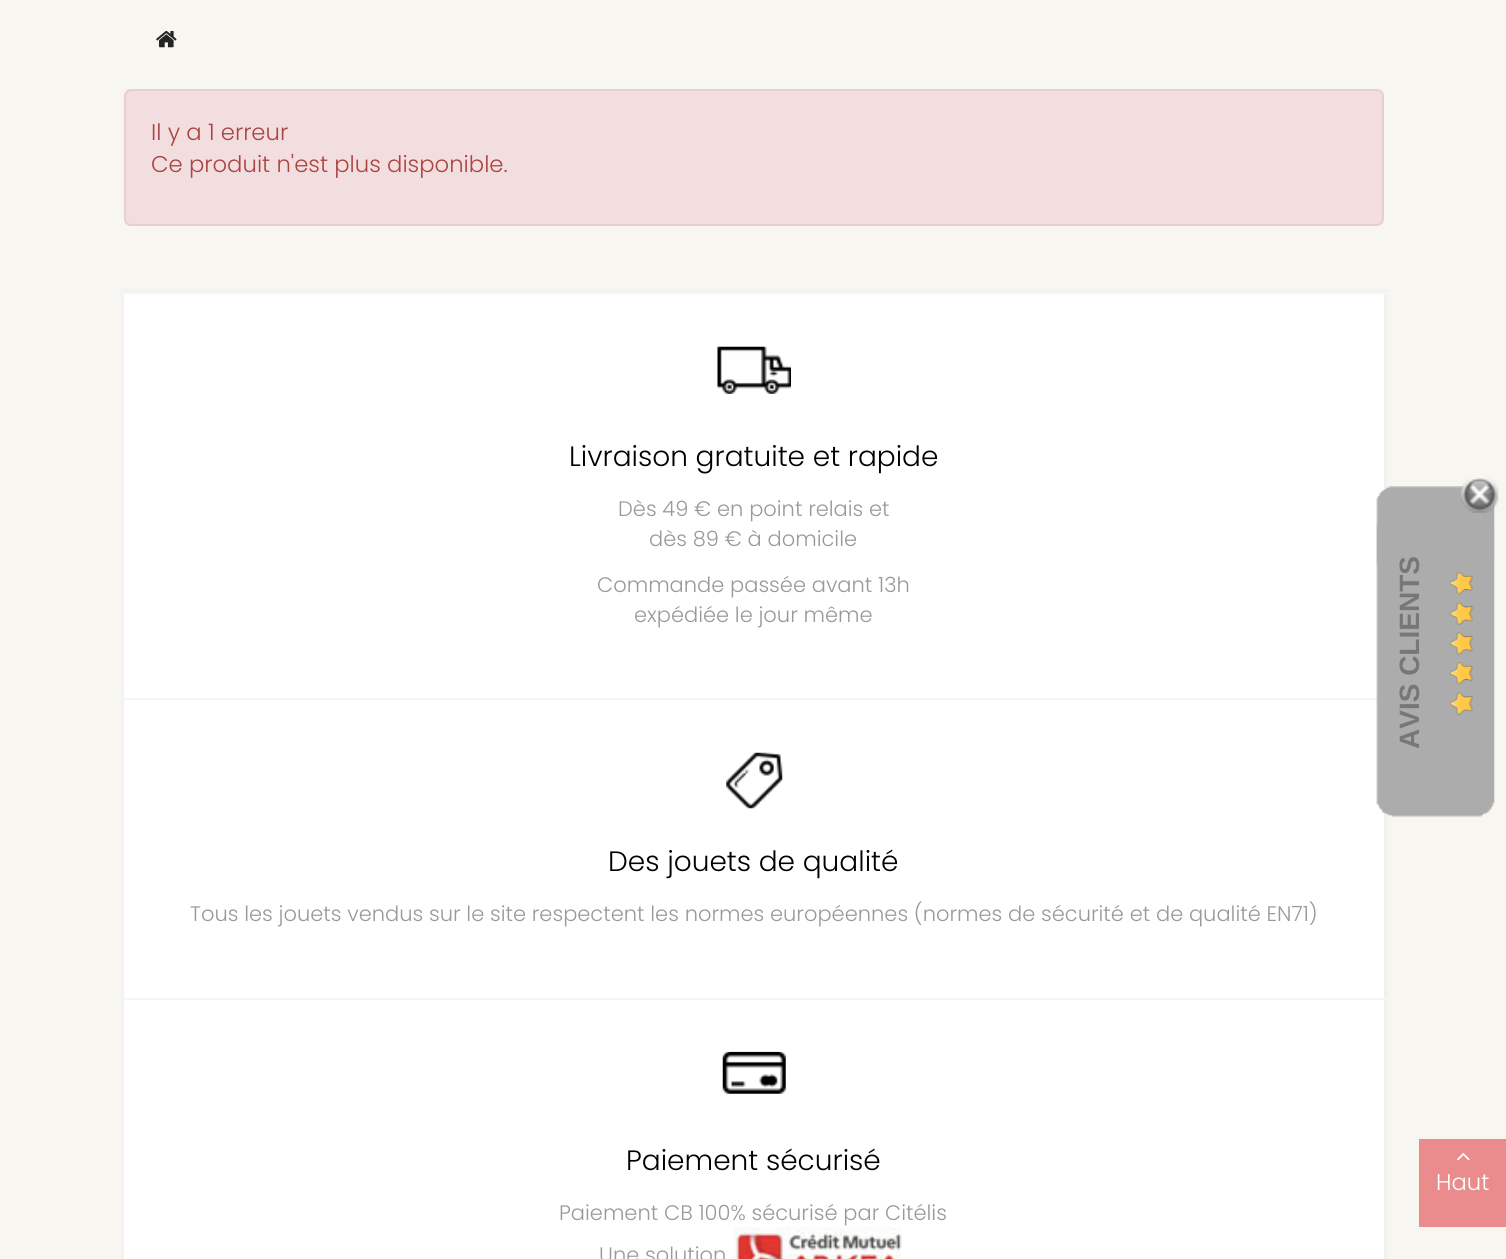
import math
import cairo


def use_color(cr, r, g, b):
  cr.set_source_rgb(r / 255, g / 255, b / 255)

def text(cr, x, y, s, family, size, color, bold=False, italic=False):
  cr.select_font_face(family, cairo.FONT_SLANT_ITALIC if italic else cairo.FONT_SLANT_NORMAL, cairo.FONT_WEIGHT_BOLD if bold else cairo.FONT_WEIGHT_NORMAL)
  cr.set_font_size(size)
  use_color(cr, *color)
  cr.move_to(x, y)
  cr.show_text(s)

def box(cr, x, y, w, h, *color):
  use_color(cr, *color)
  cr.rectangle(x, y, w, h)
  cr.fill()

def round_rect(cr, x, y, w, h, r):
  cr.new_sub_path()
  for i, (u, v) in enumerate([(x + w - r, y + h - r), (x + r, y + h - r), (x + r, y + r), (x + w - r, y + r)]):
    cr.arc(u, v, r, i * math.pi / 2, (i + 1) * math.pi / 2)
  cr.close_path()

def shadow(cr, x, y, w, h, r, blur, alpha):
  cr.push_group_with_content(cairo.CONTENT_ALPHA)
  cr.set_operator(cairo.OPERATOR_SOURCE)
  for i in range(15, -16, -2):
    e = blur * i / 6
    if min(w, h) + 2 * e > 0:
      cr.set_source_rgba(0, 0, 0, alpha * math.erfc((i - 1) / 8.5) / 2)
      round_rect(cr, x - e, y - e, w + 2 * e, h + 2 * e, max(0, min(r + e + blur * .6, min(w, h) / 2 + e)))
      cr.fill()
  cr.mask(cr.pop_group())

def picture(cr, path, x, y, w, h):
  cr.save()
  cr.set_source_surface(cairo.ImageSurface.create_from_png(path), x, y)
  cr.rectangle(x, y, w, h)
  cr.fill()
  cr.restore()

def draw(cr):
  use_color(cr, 248, 246, 240)
  cr.paint()
  picture(cr, "img_01.png", 156, 31, 21, 17)
  use_color(cr, 242, 222, 222)
  round_rect(cr, 125, 90, 1258, 135, 6)
  cr.fill_preserve()
  use_color(cr, 235, 204, 209)
  cr.stroke()
  use_color(cr, 237, 238, 238)
  shadow(cr, 123, 291, 1263, 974, 0, 2, 1)
  box(cr, 124, 294, 1260, 965, 255, 255, 255)
  box(cr, 98, 292, 1313, 2, 246, 246, 246)
  box(cr, 1409, 292, 2, 196, 246, 246, 246)
  box(cr, 98, 292, 2, 406, 246, 246, 246)
  picture(cr, "img_02.png", 717, 346, 74, 48)
  box(cr, 98, 698, 1281, 2, 246, 246, 246)
  box(cr, 1409, 815, 2, 183, 246, 246, 246)
  box(cr, 98, 698, 2, 300, 246, 246, 246)
  picture(cr, "img_03.png", 726, 752, 57, 57)
  box(cr, 98, 998, 1313, 2, 246, 246, 246)
  box(cr, 1409, 998, 2, 261, 246, 246, 246)
  box(cr, 98, 998, 2, 261, 246, 246, 246)
  picture(cr, "img_04.png", 722, 1051, 64, 43)
  picture(cr, "img_05.png", 733, 1226, 169, 33)
  picture(cr, "img_07.png", 1376, 486, 119, 331)
  picture(cr, "img_06.png", 1461, 476, 38, 37)
  picture(cr, "img_08.png", 1449, 572, 25, 143)
  box(cr, 1419, 1139, 87, 88, 234, 140, 141)
  picture(cr, "img_09.png", 1457, 1153, 13, 8)
  text(cr, 151, 140, "Il y a 1 erreur", "Poppins Light", 22.75, (169, 68, 66))
  text(cr, 151, 172, "Ce produit n'est plus disponible.", "Poppins Light", 22.75, (169, 68, 66))
  text(cr, 569, 466, "Livraison gratuite et rapide", "Poppins Light", 28, (0, 0, 0))
  text(cr, 618, 516, "Dès 49 € en point relais et", "Poppins Light", 21, (153, 153, 153))
  text(cr, 649, 546, "dès 89 € à domicile", "Poppins Light", 21, (153, 153, 153))
  text(cr, 597, 592, "Commande passée avant 13h", "Poppins Light", 21, (153, 153, 153))
  text(cr, 634, 622, "expédiée le jour même", "Poppins Light", 21, (153, 153, 153))
  text(cr, 608, 871, "Des jouets de qualité", "Poppins Light", 28, (0, 0, 0))
  text(cr, 190, 921, "Tous les jouets vendus sur le site respectent les normes européennes (normes de sécurité et de qualité EN71)", "Poppins Light", 21, (153, 153, 153))
  text(cr, 626, 1170, "Paiement sécurisé", "Poppins Light", 28, (0, 0, 0))
  text(cr, 559, 1220, "Paiement CB 100% sécurisé par Citélis", "Poppins Light", 21, (153, 153, 153))
  text(cr, 599, 1262, "Une solution", "Poppins Light", 21, (153, 153, 153))
  cr.save()
  cr.translate(1419, 749)
  cr.rotate(-90 * math.pi / 180)
  text(cr, 0, 0, "AVIS CLIENTS", "Liberation Sans", 28, (119, 119, 119), bold=True)
  cr.restore()
  text(cr, 1436, 1190, "Haut", "Poppins Light", 22.75, (255, 255, 255))


surface = cairo.ImageSurface(cairo.FORMAT_RGB24, 1506, 1259)
cr = cairo.Context(surface)
options = cairo.FontOptions()
options.set_hint_metrics(cairo.HINT_METRICS_OFF)
options.set_hint_style(cairo.HINT_STYLE_NONE)
cr.set_font_options(options)
cr.set_miter_limit(4)
draw(cr)
surface.write_to_png("out.png")
